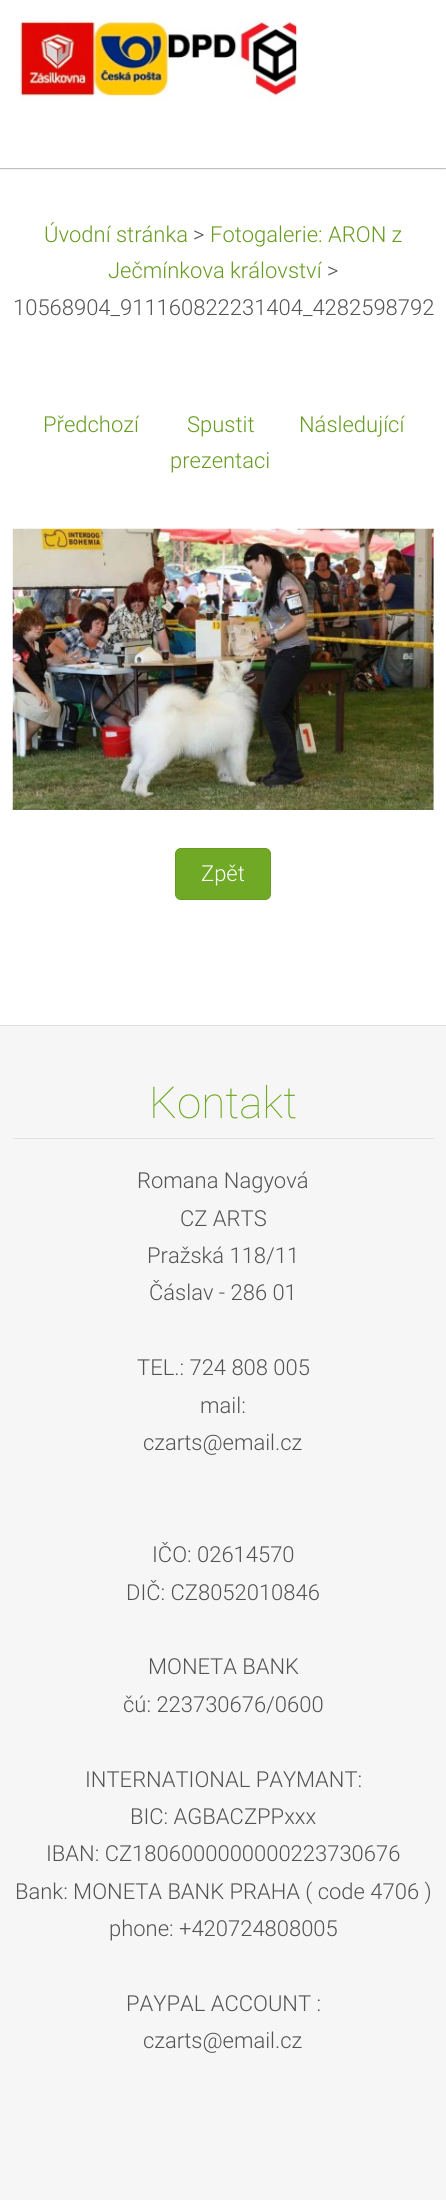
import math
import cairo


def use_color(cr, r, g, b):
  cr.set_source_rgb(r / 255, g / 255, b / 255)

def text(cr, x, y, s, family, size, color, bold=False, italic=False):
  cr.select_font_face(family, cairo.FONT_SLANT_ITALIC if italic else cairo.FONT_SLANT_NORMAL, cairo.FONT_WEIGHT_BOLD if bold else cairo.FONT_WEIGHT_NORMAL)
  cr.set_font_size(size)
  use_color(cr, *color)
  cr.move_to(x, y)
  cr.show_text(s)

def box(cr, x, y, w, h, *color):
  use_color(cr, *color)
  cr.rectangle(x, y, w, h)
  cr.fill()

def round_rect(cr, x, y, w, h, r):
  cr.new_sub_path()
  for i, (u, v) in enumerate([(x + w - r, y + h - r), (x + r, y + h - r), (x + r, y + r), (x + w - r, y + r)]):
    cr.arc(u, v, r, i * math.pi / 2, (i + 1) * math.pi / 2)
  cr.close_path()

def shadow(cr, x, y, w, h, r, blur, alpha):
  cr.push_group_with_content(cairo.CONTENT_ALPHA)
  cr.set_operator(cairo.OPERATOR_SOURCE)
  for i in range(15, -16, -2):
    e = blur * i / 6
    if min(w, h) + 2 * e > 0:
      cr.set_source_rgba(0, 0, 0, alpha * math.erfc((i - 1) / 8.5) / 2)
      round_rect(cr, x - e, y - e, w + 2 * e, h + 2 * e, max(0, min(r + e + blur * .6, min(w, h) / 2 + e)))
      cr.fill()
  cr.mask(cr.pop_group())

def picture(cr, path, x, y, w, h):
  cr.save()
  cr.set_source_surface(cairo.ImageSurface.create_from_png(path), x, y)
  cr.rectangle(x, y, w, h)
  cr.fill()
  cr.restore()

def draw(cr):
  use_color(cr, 255, 255, 255)
  cr.paint()
  use_color(cr, 76, 76, 76)
  shadow(cr, 0, 0, 446, 168, 0, 1, 1)
  box(cr, 0, 0, 446, 168, 255, 255, 255)
  picture(cr, "img_01.png", 19, 19, 278, 82)
  picture(cr, "img_02.png", 12, 528, 422, 282)
  use_color(cr, 112, 169, 38)
  round_rect(cr, 175.5, 848.5, 95, 51, 5.5)
  cr.fill_preserve()
  use_color(cr, 102, 156, 31)
  cr.set_line_width(1)
  cr.stroke()
  box(cr, 0, 1026, 446, 1174, 246, 246, 246)
  box(cr, 0, 1025, 446, 1, 221, 221, 221)
  box(cr, 13, 1138, 421, 1, 226, 226, 226)
  text(cr, 44, 242, "Úvodní stránka", "Roboto Light", 22, (102, 156, 31))
  text(cr, 193, 242, ">", "Roboto Light", 22, (83, 83, 83))
  text(cr, 210, 242, "Fotogalerie: ARON z", "Roboto Light", 22, (102, 156, 31))
  text(cr, 108, 278, "Ječmínkova království", "Roboto Light", 22, (102, 156, 31))
  text(cr, 327, 278, ">", "Roboto Light", 22, (83, 83, 83))
  text(cr, 13, 315, "10568904_911160822231404_4282598792", "Roboto Light", 22, (83, 83, 83))
  text(cr, 43, 432, "Předchozí", "Roboto Light", 22, (102, 156, 31))
  text(cr, 187, 432, "Spustit", "Roboto Light", 22, (102, 156, 31))
  text(cr, 170, 468, "prezentaci", "Roboto Light", 22, (102, 156, 31))
  text(cr, 299, 432, "Následující", "Roboto Light", 22, (102, 156, 31))
  text(cr, 201, 881, "Zpět", "Roboto Light", 22, (255, 255, 255))
  text(cr, 149, 1118, "Kontakt", "Roboto Thin", 44, (112, 169, 38))
  text(cr, 137, 1188, "Romana Nagyová", "Roboto Light", 22, (83, 83, 83))
  text(cr, 180, 1226, "CZ ARTS", "Roboto Light", 22, (83, 83, 83))
  text(cr, 147, 1263, "Pražská 118/11", "Roboto Light", 22, (83, 83, 83))
  text(cr, 149, 1300, "Čáslav - 286 01", "Roboto Light", 22, (83, 83, 83))
  text(cr, 137, 1375, "TEL.: 724 808 005", "Roboto Light", 22, (83, 83, 83))
  text(cr, 200, 1413, "mail:", "Roboto Light", 22, (83, 83, 83))
  text(cr, 143, 1450, "czarts@email.cz", "Roboto Light", 22, (83, 83, 83))
  text(cr, 152, 1562, "IČO: 02614570", "Roboto Light", 22, (83, 83, 83))
  text(cr, 126, 1600, "DIČ: CZ8052010846", "Roboto Light", 22, (83, 83, 83))
  text(cr, 148, 1674, "MONETA BANK", "Roboto Light", 22, (83, 83, 83))
  text(cr, 123, 1712, "čú: 223730676/0600", "Roboto Light", 22, (83, 83, 83))
  text(cr, 85, 1787, "INTERNATIONAL PAYMANT:", "Roboto Light", 22, (83, 83, 83))
  text(cr, 130, 1824, "BIC: AGBACZPPxxx", "Roboto Light", 22, (83, 83, 83))
  text(cr, 46, 1861, "IBAN: CZ1806000000000223730676", "Roboto Light", 22, (83, 83, 83))
  text(cr, 15, 1899, "Bank: MONETA BANK PRAHA ( code 4706 )", "Roboto Light", 22, (83, 83, 83))
  text(cr, 109, 1936, "phone: +420724808005", "Roboto Light", 22, (83, 83, 83))
  text(cr, 126, 2011, "PAYPAL ACCOUNT :", "Roboto Light", 22, (83, 83, 83))
  text(cr, 143, 2048, "czarts@email.cz", "Roboto Light", 22, (83, 83, 83))


surface = cairo.ImageSurface(cairo.FORMAT_RGB24, 446, 2200)
cr = cairo.Context(surface)
options = cairo.FontOptions()
options.set_hint_metrics(cairo.HINT_METRICS_OFF)
options.set_hint_style(cairo.HINT_STYLE_NONE)
cr.set_font_options(options)
cr.set_miter_limit(4)
draw(cr)
surface.write_to_png("out.png")
